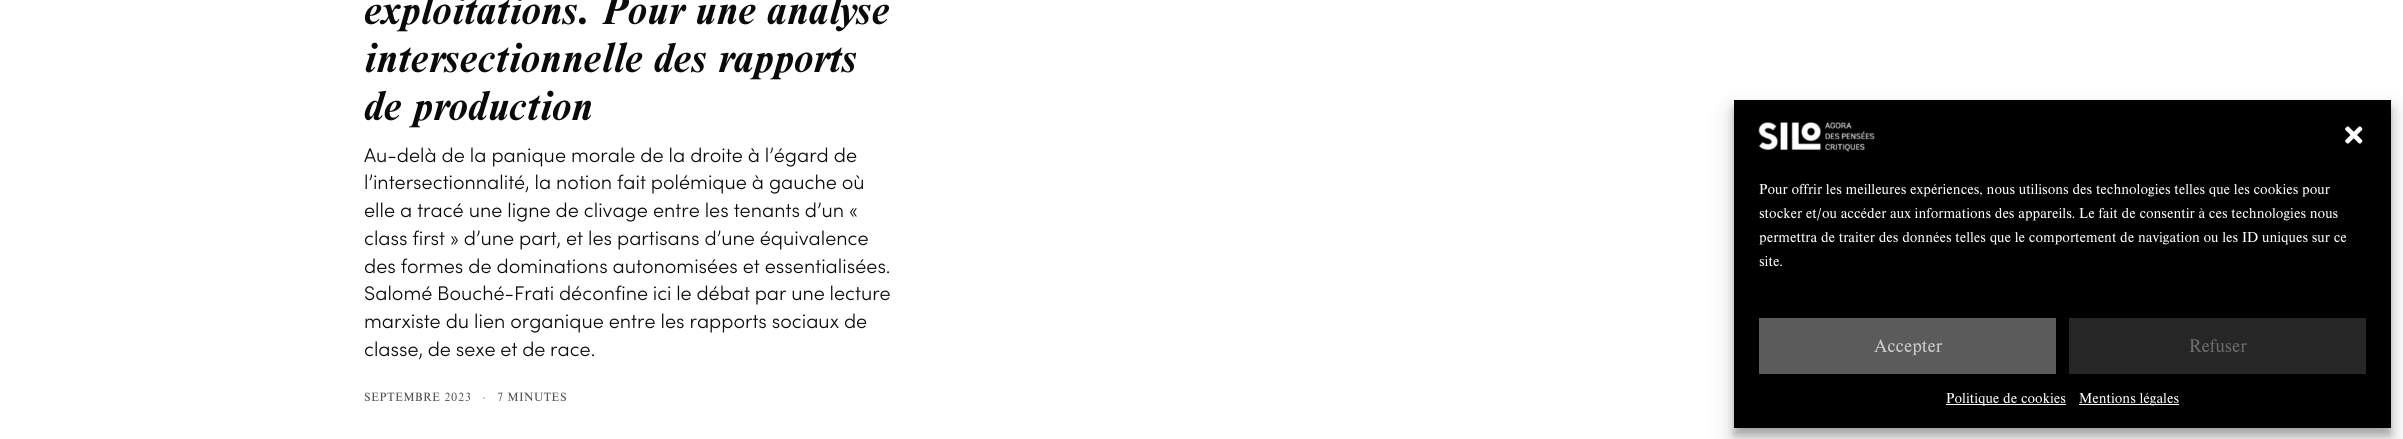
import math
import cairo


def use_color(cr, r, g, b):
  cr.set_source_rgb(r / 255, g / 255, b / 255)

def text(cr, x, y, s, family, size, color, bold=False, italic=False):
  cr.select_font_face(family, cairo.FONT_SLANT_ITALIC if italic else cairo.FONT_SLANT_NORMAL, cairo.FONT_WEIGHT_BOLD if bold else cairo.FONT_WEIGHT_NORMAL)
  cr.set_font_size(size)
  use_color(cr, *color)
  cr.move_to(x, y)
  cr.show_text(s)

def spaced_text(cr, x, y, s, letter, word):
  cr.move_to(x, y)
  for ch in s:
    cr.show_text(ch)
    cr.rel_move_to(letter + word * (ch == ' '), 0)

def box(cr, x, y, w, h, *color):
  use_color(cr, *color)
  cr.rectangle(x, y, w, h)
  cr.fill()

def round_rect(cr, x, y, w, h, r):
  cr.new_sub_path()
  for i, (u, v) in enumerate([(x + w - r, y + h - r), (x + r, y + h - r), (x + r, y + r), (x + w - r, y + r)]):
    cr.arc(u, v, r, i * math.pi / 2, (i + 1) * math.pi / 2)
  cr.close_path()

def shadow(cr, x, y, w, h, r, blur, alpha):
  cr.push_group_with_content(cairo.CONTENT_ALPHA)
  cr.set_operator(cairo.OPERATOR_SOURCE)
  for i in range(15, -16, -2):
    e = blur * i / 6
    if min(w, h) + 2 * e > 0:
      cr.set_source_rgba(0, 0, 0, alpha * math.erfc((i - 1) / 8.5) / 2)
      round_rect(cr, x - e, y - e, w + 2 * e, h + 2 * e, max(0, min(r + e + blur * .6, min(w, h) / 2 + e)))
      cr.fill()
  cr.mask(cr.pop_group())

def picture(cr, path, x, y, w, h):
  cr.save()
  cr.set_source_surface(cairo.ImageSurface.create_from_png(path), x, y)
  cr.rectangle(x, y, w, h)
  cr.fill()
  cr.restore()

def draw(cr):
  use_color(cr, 255, 255, 255)
  cr.paint()
  use_color(cr, 0, 0, 0)
  shadow(cr, 1734, 108, 657, 327, 0, 4, 0.23)
  shadow(cr, 1734, 113, 657, 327, 0, 12.5, 0.19)
  box(cr, 1734, 100, 657, 328, 0, 0, 0)
  picture(cr, "img_01.png", 1758, 122, 117, 30)
  picture(cr, "img_02.png", 2345, 126, 18, 18)
  box(cr, 1759, 318, 297, 56, 91, 91, 91)
  box(cr, 2069, 318, 297, 56, 38, 38, 38)
  box(cr, 1946, 404, 120, 1, 255, 255, 255)
  box(cr, 2079, 404, 100, 1, 255, 255, 255)
  text(cr, 364, 24, "exploitations. Pour une analyse", "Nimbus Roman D", 43.75, (10, 10, 10), bold=True, italic=True)
  text(cr, 364, 72, "intersectionnelle des rapports", "Nimbus Roman D", 43.75, (10, 10, 10), bold=True, italic=True)
  text(cr, 364, 120, "de production", "Nimbus Roman D", 43.75, (10, 10, 10), bold=True, italic=True)
  cr.select_font_face("Sofia Light")
  cr.set_font_size(19.8)
  spaced_text(cr, 364, 162, "Au-delà de la panique morale de la droite à l’égard de", 0, -0.25)
  spaced_text(cr, 364, 189, "l’intersectionnalité, la notion fait polémique à gauche où", 0, -0.25)
  spaced_text(cr, 364, 217, "elle a tracé une ligne de clivage entre les tenants d’un «", 0, -0.25)
  spaced_text(cr, 364, 245, "class first » d’une part, et les partisans d’une équivalence", 0, -0.25)
  spaced_text(cr, 364, 273, "des formes de dominations autonomisées et essentialisées.", 0, -0.25)
  spaced_text(cr, 364, 300, "Salomé Bouché-Frati déconfine ici le débat par une lecture", 0, -0.5)
  spaced_text(cr, 364, 328, "marxiste du lien organique entre les rapports sociaux de", 0, -0.25)
  spaced_text(cr, 364, 356, "classe, de sexe et de race.", 0, -0.5)
  cr.select_font_face("Nimbus Roman D")
  cr.set_font_size(12.5)
  use_color(cr, 84, 84, 84)
  spaced_text(cr, 364, 401, "SEPTEMBRE 2023", 0.6, 0)
  cr.select_font_face("Nimbus Roman D", cairo.FONT_SLANT_NORMAL, cairo.FONT_WEIGHT_BOLD)
  use_color(cr, 181, 181, 181)
  spaced_text(cr, 482, 401, "·", 0.6, 0)
  cr.select_font_face("Nimbus Roman D")
  use_color(cr, 84, 84, 84)
  spaced_text(cr, 497, 401, "7 MINUTES", 0.6, 0)
  text(cr, 1759, 194, "Pour offrir les meilleures expériences, nous utilisons des technologies telles que les cookies pour", "Nimbus Roman D", 15, (255, 255, 255))
  text(cr, 1759, 218, "stocker et/ou accéder aux informations des appareils. Le fait de consentir à ces technologies nous", "Nimbus Roman D", 15, (255, 255, 255))
  text(cr, 1759, 242, "permettra de traiter des données telles que le comportement de navigation ou les ID uniques sur ce", "Nimbus Roman D", 15, (255, 255, 255))
  text(cr, 1759, 266, "site.", "Nimbus Roman D", 15, (255, 255, 255))
  text(cr, 1874, 352, "Accepter", "Nimbus Roman D", 19, (204, 204, 204))
  text(cr, 2189, 352, "Refuser", "Nimbus Roman D", 19, (107, 107, 107))
  text(cr, 1946, 403, "Politique de cookies", "Nimbus Roman D", 15, (255, 255, 255))
  text(cr, 2079, 403, "Mentions légales", "Nimbus Roman D", 15, (255, 255, 255))


surface = cairo.ImageSurface(cairo.FORMAT_RGB24, 2403, 439)
cr = cairo.Context(surface)
options = cairo.FontOptions()
options.set_hint_metrics(cairo.HINT_METRICS_OFF)
options.set_hint_style(cairo.HINT_STYLE_NONE)
cr.set_font_options(options)
cr.set_miter_limit(4)
draw(cr)
surface.write_to_png("out.png")
